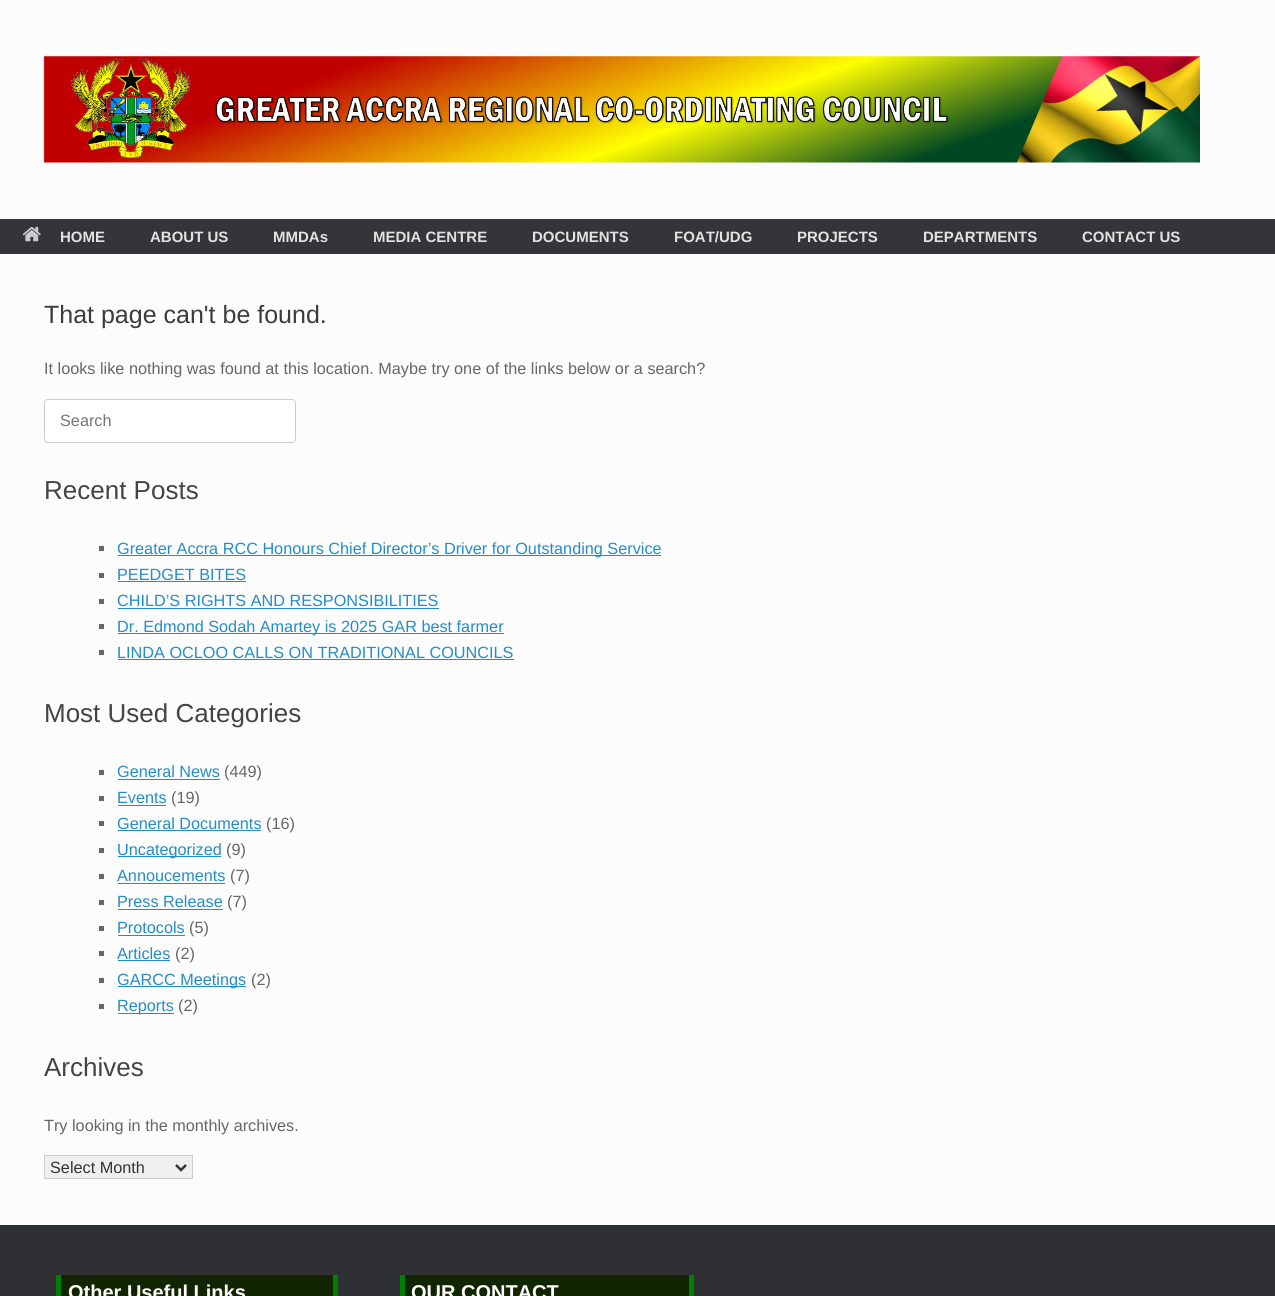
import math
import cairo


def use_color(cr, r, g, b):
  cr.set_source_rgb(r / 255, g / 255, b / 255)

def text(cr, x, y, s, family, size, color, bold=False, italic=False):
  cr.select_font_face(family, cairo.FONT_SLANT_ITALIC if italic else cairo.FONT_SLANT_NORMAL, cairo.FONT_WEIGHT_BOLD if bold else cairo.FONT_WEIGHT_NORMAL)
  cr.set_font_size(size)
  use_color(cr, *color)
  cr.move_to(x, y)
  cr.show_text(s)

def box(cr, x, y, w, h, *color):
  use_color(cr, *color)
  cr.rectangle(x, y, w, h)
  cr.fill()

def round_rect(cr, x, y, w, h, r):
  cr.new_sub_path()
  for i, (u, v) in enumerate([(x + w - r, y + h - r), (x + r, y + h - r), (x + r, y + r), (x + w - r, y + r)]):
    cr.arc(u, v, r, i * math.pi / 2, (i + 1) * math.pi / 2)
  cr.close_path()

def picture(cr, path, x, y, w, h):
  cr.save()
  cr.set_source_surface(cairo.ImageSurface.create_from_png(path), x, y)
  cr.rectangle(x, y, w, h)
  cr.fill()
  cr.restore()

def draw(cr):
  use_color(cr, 252, 252, 252)
  cr.paint()
  picture(cr, "img_01.png", 43, 56, 1157, 107)
  box(cr, 0, 219, 1275, 35, 52, 53, 56)
  picture(cr, "img_02.png", 22, 226, 19, 16)
  use_color(cr, 255, 255, 255)
  round_rect(cr, 44.5, 399.5, 251, 43, 3.5)
  cr.fill_preserve()
  use_color(cr, 204, 204, 204)
  cr.set_line_width(1)
  cr.stroke()
  box(cr, 99, 546, 5, 5, 102, 102, 102)
  box(cr, 118, 555, 543, 1, 36, 140, 200)
  box(cr, 99, 573, 5, 5, 102, 102, 102)
  box(cr, 118, 581, 128, 1, 36, 140, 200)
  box(cr, 99, 599, 5, 5, 102, 102, 102)
  box(cr, 118, 608, 321, 1, 36, 140, 200)
  box(cr, 99, 624, 5, 5, 102, 102, 102)
  box(cr, 118, 633, 386, 1, 36, 140, 200)
  box(cr, 99, 650, 5, 5, 102, 102, 102)
  box(cr, 118, 659, 396, 1, 36, 140, 200)
  box(cr, 99, 770, 5, 5, 102, 102, 102)
  box(cr, 118, 779, 102, 1, 36, 140, 200)
  box(cr, 99, 796, 5, 5, 102, 102, 102)
  box(cr, 118, 805, 48, 1, 36, 140, 200)
  box(cr, 99, 821, 5, 5, 102, 102, 102)
  box(cr, 118, 830, 143, 1, 36, 140, 200)
  box(cr, 99, 848, 5, 5, 102, 102, 102)
  box(cr, 118, 856, 103, 1, 36, 140, 200)
  box(cr, 99, 874, 5, 5, 102, 102, 102)
  box(cr, 118, 883, 107, 1, 36, 140, 200)
  box(cr, 99, 900, 5, 5, 102, 102, 102)
  box(cr, 118, 909, 105, 1, 36, 140, 200)
  box(cr, 99, 926, 5, 5, 102, 102, 102)
  box(cr, 118, 935, 67, 1, 36, 140, 200)
  box(cr, 99, 951, 5, 5, 102, 102, 102)
  box(cr, 118, 960, 52, 1, 36, 140, 200)
  box(cr, 99, 978, 5, 5, 102, 102, 102)
  box(cr, 118, 986, 128, 1, 36, 140, 200)
  box(cr, 99, 1004, 5, 5, 102, 102, 102)
  box(cr, 118, 1013, 56, 1, 36, 140, 200)
  use_color(cr, 239, 239, 239)
  cr.rectangle(44.5, 1155.5, 148, 23)
  cr.fill_preserve()
  use_color(cr, 204, 204, 204)
  cr.stroke()
  cr.new_path()
  cr.move_to(176, 1165)
  cr.line_to(181, 1170)
  cr.line_to(186, 1165)
  use_color(cr, 51, 51, 51)
  cr.set_line_width(2.5)
  cr.stroke()
  box(cr, 0, 1225, 1275, 71, 47, 48, 51)
  box(cr, 61, 1275, 272, 21, 17, 38, 0)
  box(cr, 333, 1275, 5, 21, 0, 128, 0)
  box(cr, 56, 1275, 5, 21, 0, 128, 0)
  box(cr, 405, 1275, 284, 21, 17, 38, 0)
  box(cr, 689, 1275, 5, 21, 0, 128, 0)
  box(cr, 400, 1275, 5, 21, 0, 128, 0)
  text(cr, 60, 242, "HOME", "Liberation Sans", 15, (226, 226, 226), bold=True)
  text(cr, 150, 242, "ABOUT US", "Liberation Sans", 15, (226, 226, 226), bold=True)
  text(cr, 273, 242, "MMDAs", "Liberation Sans", 15, (226, 226, 226), bold=True)
  text(cr, 373, 242, "MEDIA CENTRE", "Liberation Sans", 15, (226, 226, 226), bold=True)
  text(cr, 532, 242, "DOCUMENTS", "Liberation Sans", 15, (226, 226, 226), bold=True)
  text(cr, 674, 242, "FOAT/UDG", "Liberation Sans", 15, (226, 226, 226), bold=True)
  text(cr, 797, 242, "PROJECTS", "Liberation Sans", 15, (226, 226, 226), bold=True)
  text(cr, 923, 242, "DEPARTMENTS", "Liberation Sans", 15, (226, 226, 226), bold=True)
  text(cr, 1082, 242, "CONTACT US", "Liberation Sans", 15, (226, 226, 226), bold=True)
  text(cr, 44, 323, "That page can't be found.", "Liberation Sans", 25, (59, 59, 59))
  text(cr, 44, 374, "It looks like nothing was found at this location. Maybe try one of the links below or a search?", "Liberation Sans", 16.25, (102, 102, 102))
  text(cr, 60, 426, "Search", "Liberation Sans", 16.25, (117, 117, 117))
  text(cr, 44, 499, "Recent Posts", "Liberation Sans", 26, (68, 68, 68))
  text(cr, 117, 554, "Greater Accra RCC Honours Chief Director’s Driver for Outstanding Service", "Liberation Sans", 16.25, (36, 140, 200))
  text(cr, 117, 580, "PEEDGET BITES", "Liberation Sans", 16.25, (36, 140, 200))
  text(cr, 117, 606, "CHILD’S RIGHTS AND RESPONSIBILITIES", "Liberation Sans", 16.25, (36, 140, 200))
  text(cr, 117, 632, "Dr. Edmond Sodah Amartey is 2025 GAR best farmer", "Liberation Sans", 16.25, (36, 140, 200))
  text(cr, 117, 658, "LINDA OCLOO CALLS ON TRADITIONAL COUNCILS", "Liberation Sans", 16.25, (36, 140, 200))
  text(cr, 44, 722, "Most Used Categories", "Liberation Sans", 26, (68, 68, 68))
  text(cr, 117, 777, "General News", "Liberation Sans", 16.25, (36, 140, 200))
  text(cr, 224, 777, "(449)", "Liberation Sans", 16.25, (102, 102, 102))
  text(cr, 117, 803, "Events", "Liberation Sans", 16.25, (36, 140, 200))
  text(cr, 171, 803, "(19)", "Liberation Sans", 16.25, (102, 102, 102))
  text(cr, 117, 829, "General Documents", "Liberation Sans", 16.25, (36, 140, 200))
  text(cr, 266, 829, "(16)", "Liberation Sans", 16.25, (102, 102, 102))
  text(cr, 117, 855, "Uncategorized", "Liberation Sans", 16.25, (36, 140, 200))
  text(cr, 226, 855, "(9)", "Liberation Sans", 16.25, (102, 102, 102))
  text(cr, 117, 881, "Annoucements", "Liberation Sans", 16.25, (36, 140, 200))
  text(cr, 230, 881, "(7)", "Liberation Sans", 16.25, (102, 102, 102))
  text(cr, 117, 907, "Press Release", "Liberation Sans", 16.25, (36, 140, 200))
  text(cr, 227, 907, "(7)", "Liberation Sans", 16.25, (102, 102, 102))
  text(cr, 117, 933, "Protocols", "Liberation Sans", 16.25, (36, 140, 200))
  text(cr, 189, 933, "(5)", "Liberation Sans", 16.25, (102, 102, 102))
  text(cr, 117, 959, "Articles", "Liberation Sans", 16.25, (36, 140, 200))
  text(cr, 175, 959, "(2)", "Liberation Sans", 16.25, (102, 102, 102))
  text(cr, 117, 985, "GARCC Meetings", "Liberation Sans", 16.25, (36, 140, 200))
  text(cr, 251, 985, "(2)", "Liberation Sans", 16.25, (102, 102, 102))
  text(cr, 117, 1011, "Reports", "Liberation Sans", 16.25, (36, 140, 200))
  text(cr, 178, 1011, "(2)", "Liberation Sans", 16.25, (102, 102, 102))
  text(cr, 44, 1076, "Archives", "Liberation Sans", 26, (68, 68, 68))
  text(cr, 44, 1131, "Try looking in the monthly archives.", "Liberation Sans", 16.25, (102, 102, 102))
  text(cr, 50, 1173, "Select Month", "Liberation Sans", 16.25, (51, 51, 51))
  text(cr, 68, 1299, "Other Useful Links", "Liberation Sans", 20, (255, 255, 255), bold=True)
  text(cr, 411, 1299, "OUR CONTACT", "Liberation Sans", 20, (255, 255, 255), bold=True)


surface = cairo.ImageSurface(cairo.FORMAT_RGB24, 1275, 1296)
cr = cairo.Context(surface)
options = cairo.FontOptions()
options.set_hint_metrics(cairo.HINT_METRICS_OFF)
options.set_hint_style(cairo.HINT_STYLE_NONE)
cr.set_font_options(options)
cr.set_miter_limit(4)
draw(cr)
surface.write_to_png("out.png")
